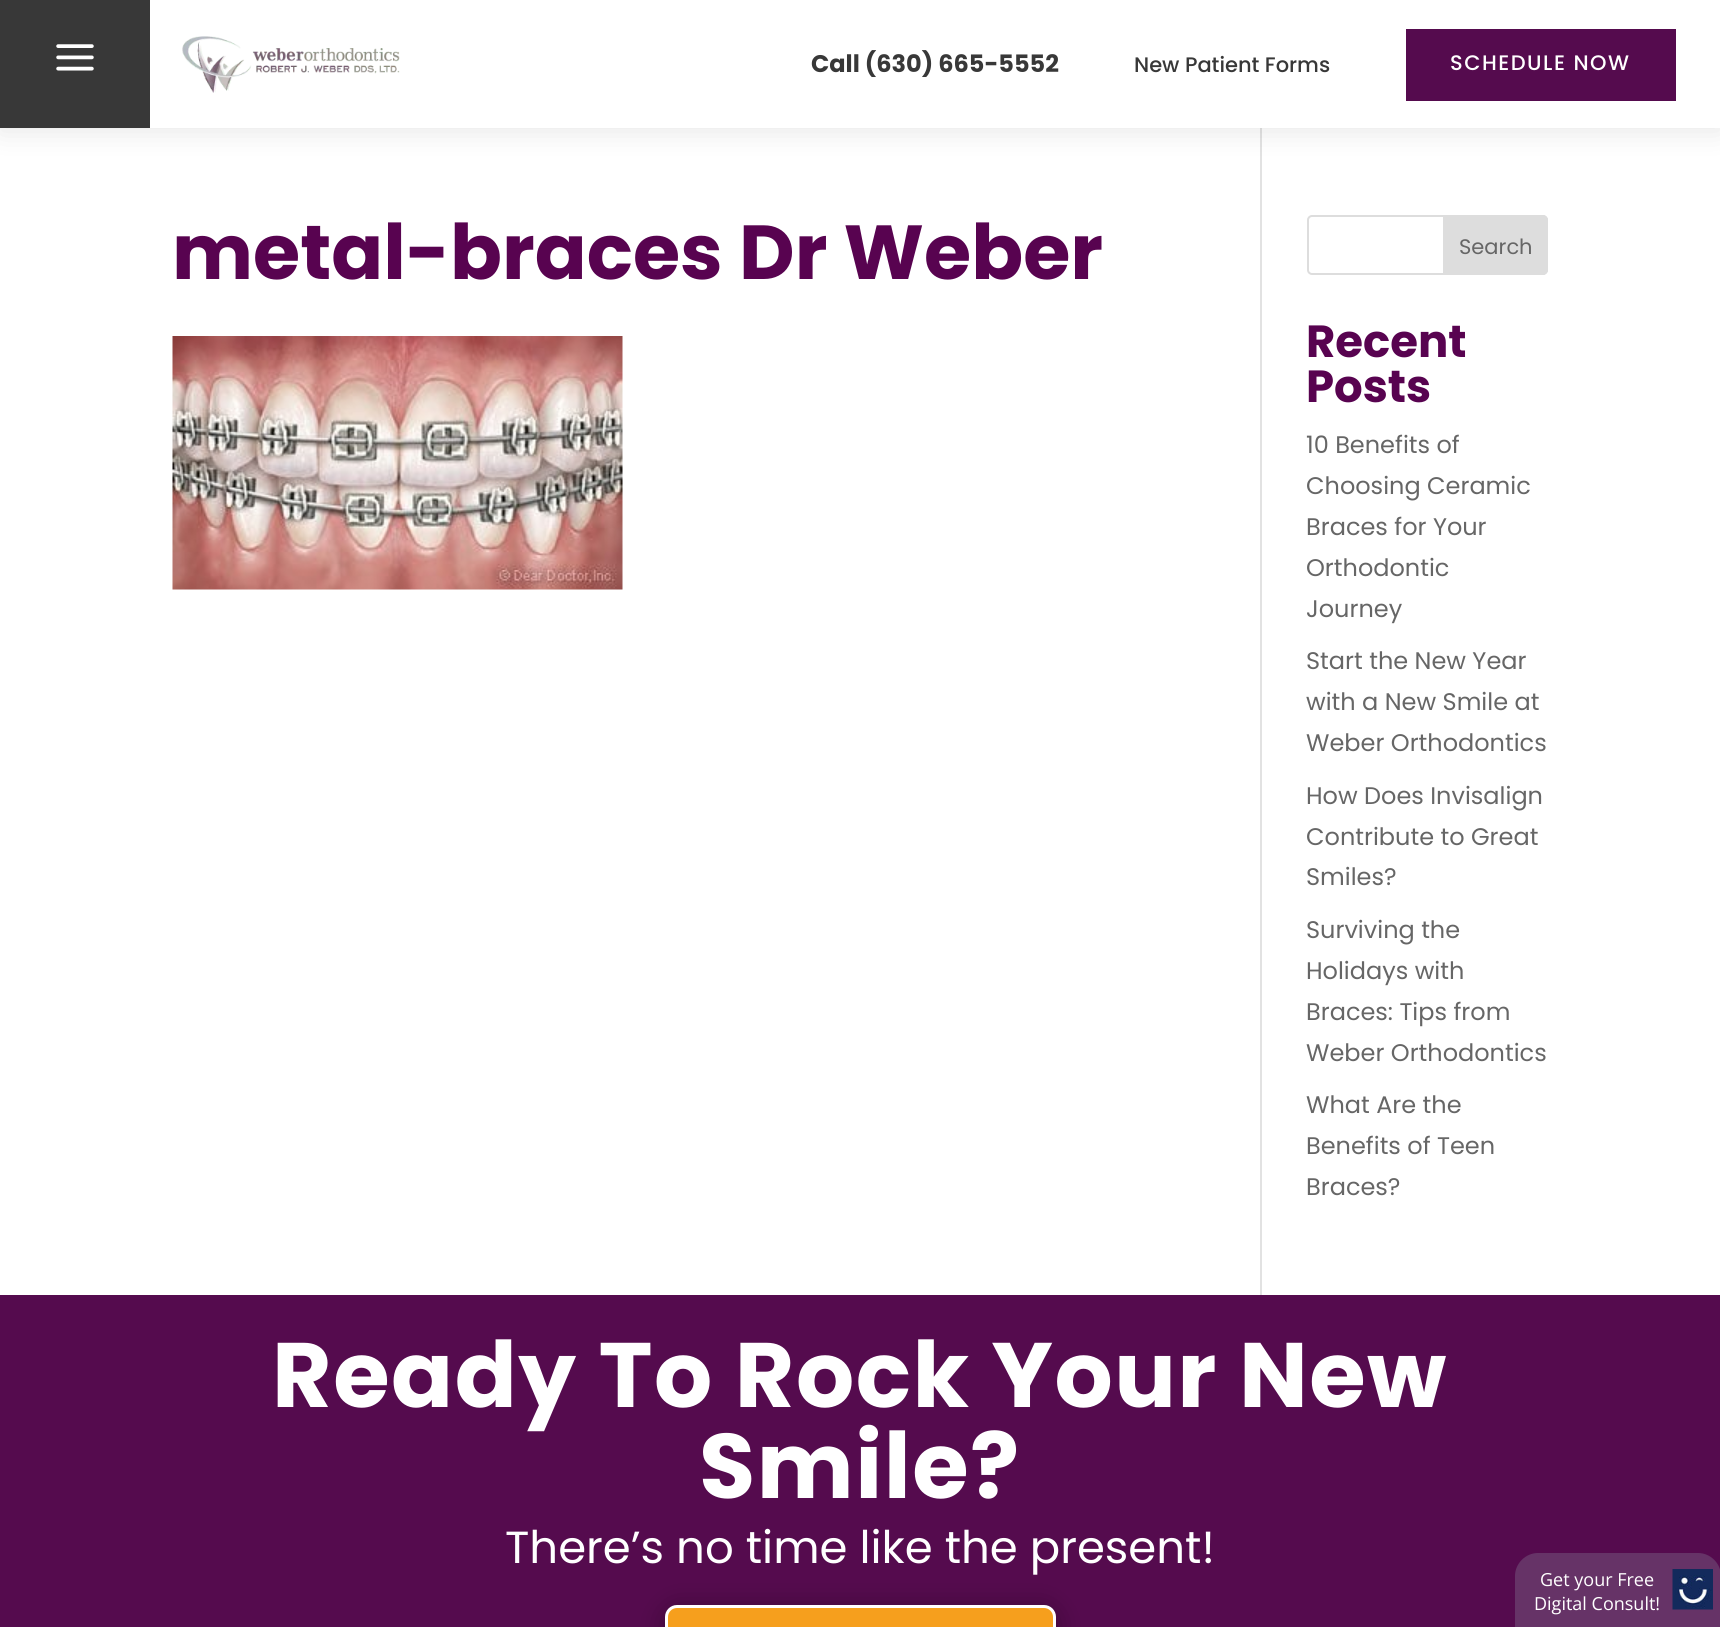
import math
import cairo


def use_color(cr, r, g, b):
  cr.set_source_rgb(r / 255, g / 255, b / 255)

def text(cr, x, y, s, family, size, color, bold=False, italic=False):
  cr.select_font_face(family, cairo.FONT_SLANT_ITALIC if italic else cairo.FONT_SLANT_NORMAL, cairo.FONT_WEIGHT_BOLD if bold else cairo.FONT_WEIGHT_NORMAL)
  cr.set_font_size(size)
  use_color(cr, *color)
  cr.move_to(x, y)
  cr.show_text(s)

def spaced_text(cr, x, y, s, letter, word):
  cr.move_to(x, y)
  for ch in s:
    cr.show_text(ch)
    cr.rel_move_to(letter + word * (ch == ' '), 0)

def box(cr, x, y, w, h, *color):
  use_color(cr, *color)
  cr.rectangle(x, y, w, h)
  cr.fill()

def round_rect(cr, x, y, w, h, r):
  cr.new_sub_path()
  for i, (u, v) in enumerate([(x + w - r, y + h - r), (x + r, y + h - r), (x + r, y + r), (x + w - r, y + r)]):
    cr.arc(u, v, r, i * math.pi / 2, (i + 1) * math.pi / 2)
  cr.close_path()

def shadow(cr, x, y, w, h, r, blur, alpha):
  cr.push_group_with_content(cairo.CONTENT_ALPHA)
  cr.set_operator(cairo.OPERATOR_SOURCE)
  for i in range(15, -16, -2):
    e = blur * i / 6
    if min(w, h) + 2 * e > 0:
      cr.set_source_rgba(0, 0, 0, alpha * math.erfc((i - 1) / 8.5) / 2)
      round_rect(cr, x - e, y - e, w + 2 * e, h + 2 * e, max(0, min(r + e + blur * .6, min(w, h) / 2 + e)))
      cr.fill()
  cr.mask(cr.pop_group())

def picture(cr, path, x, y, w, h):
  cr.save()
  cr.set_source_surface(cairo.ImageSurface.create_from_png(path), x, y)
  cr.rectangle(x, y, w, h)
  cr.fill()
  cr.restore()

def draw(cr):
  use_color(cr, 255, 255, 255)
  cr.paint()
  box(cr, 1260, 128, 2, 1167, 226, 226, 226)
  use_color(cr, 0, 0, 0)
  shadow(cr, 0, 3, 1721, 128, 0, 13.5, 0.1)
  box(cr, 150, 0, 1570, 128, 255, 255, 255)
  box(cr, 0, 0, 150, 128, 56, 56, 56)
  picture(cr, "img_01.png", 56, 44, 38, 27)
  picture(cr, "img_02.png", 182, 36, 218, 57)
  box(cr, 1406, 29, 270, 72, 85, 11, 78)
  picture(cr, "img_03.png", 172, 336, 451, 254)
  round_rect(cr, 1308, 216, 239, 58, 4)
  use_color(cr, 221, 221, 221)
  cr.stroke()
  cr.new_path()
  cr.move_to(1444, 216)
  cr.line_to(1543, 216)
  cr.curve_to(1545, 216, 1547, 218, 1547, 220)
  cr.line_to(1547, 270)
  cr.curve_to(1547, 272, 1545, 274, 1543, 274)
  cr.line_to(1444, 274)
  cr.close_path()
  cr.fill_preserve()
  cr.stroke()
  box(cr, 0, 1295, 1720, 332, 85, 11, 78)
  use_color(cr, 0, 0, 0)
  shadow(cr, 665, 1608, 391, 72, 12, 13.5, 0.3)
  use_color(cr, 246, 159, 29)
  round_rect(cr, 666.5, 1606.5, 388, 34, 10.5)
  cr.fill_preserve()
  use_color(cr, 255, 255, 255)
  cr.set_line_width(3)
  cr.stroke()
  use_color(cr, 102, 51, 103)
  cr.new_path()
  cr.move_to(1538, 1553)
  cr.line_to(1698, 1553)
  cr.curve_to(1710.5, 1553, 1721, 1563.5, 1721, 1576)
  cr.line_to(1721, 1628)
  cr.line_to(1515, 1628)
  cr.line_to(1515, 1576)
  cr.curve_to(1515, 1563.5, 1525.5, 1553, 1538, 1553)
  cr.close_path()
  cr.fill()
  picture(cr, "img_04.png", 1672, 1569, 41, 41)
  text(cr, 811, 72, "Call (630) 665-5552", "Poppins", 24, (56, 56, 56), bold=True)
  text(cr, 1134, 72, "New Patient Forms", "Poppins Medium", 21, (56, 56, 56))
  use_color(cr, 255, 255, 255)
  spaced_text(cr, 1450, 70, "SCHEDULE NOW", 1.5, 0)
  text(cr, 172, 279, "metal-braces Dr Weber", "Poppins", 76.5, (88, 3, 80), bold=True)
  text(cr, 1459, 254, "Search", "Poppins", 21, (102, 102, 102))
  text(cr, 1306, 357, "Recent", "Poppins", 45, (88, 3, 80), bold=True)
  text(cr, 1306, 402, "Posts", "Poppins", 45, (88, 3, 80), bold=True)
  text(cr, 1306, 453, "10 Benefits of", "Poppins", 24, (102, 102, 102))
  text(cr, 1306, 494, "Choosing Ceramic", "Poppins", 24, (102, 102, 102))
  text(cr, 1306, 535, "Braces for Your", "Poppins", 24, (102, 102, 102))
  text(cr, 1306, 576, "Orthodontic", "Poppins", 24, (102, 102, 102))
  text(cr, 1306, 617, "Journey", "Poppins", 24, (102, 102, 102))
  text(cr, 1306, 669, "Start the New Year", "Poppins", 24, (102, 102, 102))
  text(cr, 1306, 710, "with a New Smile at", "Poppins", 24, (102, 102, 102))
  text(cr, 1306, 751, "Weber Orthodontics", "Poppins", 24, (102, 102, 102))
  text(cr, 1306, 804, "How Does Invisalign", "Poppins", 24, (102, 102, 102))
  text(cr, 1306, 845, "Contribute to Great", "Poppins", 24, (102, 102, 102))
  text(cr, 1306, 885, "Smiles?", "Poppins", 24, (102, 102, 102))
  text(cr, 1306, 938, "Surviving the", "Poppins", 24, (102, 102, 102))
  text(cr, 1306, 979, "Holidays with", "Poppins", 24, (102, 102, 102))
  text(cr, 1306, 1020, "Braces: Tips from", "Poppins", 24, (102, 102, 102))
  text(cr, 1306, 1061, "Weber Orthodontics", "Poppins", 24, (102, 102, 102))
  text(cr, 1306, 1113, "What Are the", "Poppins", 24, (102, 102, 102))
  text(cr, 1306, 1154, "Benefits of Teen", "Poppins", 24, (102, 102, 102))
  text(cr, 1306, 1195, "Braces?", "Poppins", 24, (102, 102, 102))
  cr.select_font_face("Poppins", cairo.FONT_SLANT_NORMAL, cairo.FONT_WEIGHT_BOLD)
  cr.set_font_size(91.5)
  use_color(cr, 255, 255, 255)
  spaced_text(cr, 272, 1407, "Ready To Rock Your New", 1.5, 0)
  spaced_text(cr, 699, 1498, "Smile?", 1.5, 0)
  text(cr, 505, 1563, "There’s no time like the present!", "Poppins", 45, (255, 255, 255))
  text(cr, 1540, 1586, "Get your Free", "Open Sans", 18, (255, 255, 255))
  text(cr, 1534, 1610, "Digital Consult!", "Open Sans", 18, (255, 255, 255))


surface = cairo.ImageSurface(cairo.FORMAT_RGB24, 1720, 1627)
cr = cairo.Context(surface)
options = cairo.FontOptions()
options.set_hint_metrics(cairo.HINT_METRICS_OFF)
options.set_hint_style(cairo.HINT_STYLE_NONE)
cr.set_font_options(options)
cr.set_miter_limit(4)
draw(cr)
surface.write_to_png("out.png")
